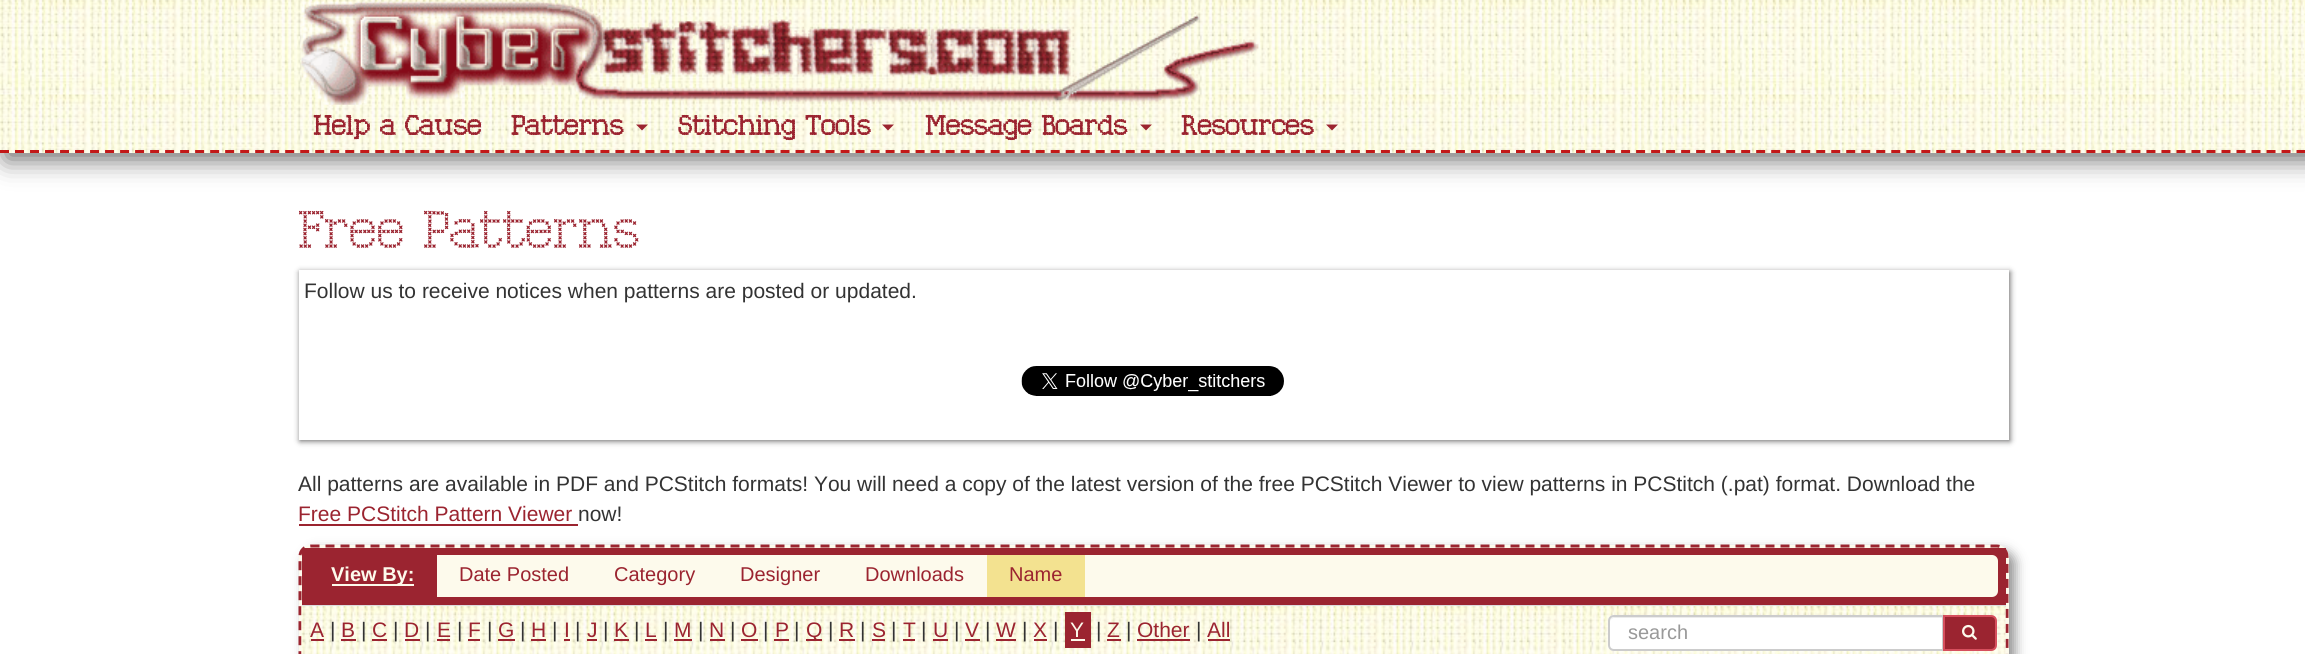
import math
import cairo


def use_color(cr, r, g, b):
  cr.set_source_rgb(r / 255, g / 255, b / 255)

def text(cr, x, y, s, family, size, color, bold=False, italic=False):
  cr.select_font_face(family, cairo.FONT_SLANT_ITALIC if italic else cairo.FONT_SLANT_NORMAL, cairo.FONT_WEIGHT_BOLD if bold else cairo.FONT_WEIGHT_NORMAL)
  cr.set_font_size(size)
  use_color(cr, *color)
  cr.move_to(x, y)
  cr.show_text(s)

def box(cr, x, y, w, h, *color):
  use_color(cr, *color)
  cr.rectangle(x, y, w, h)
  cr.fill()

def round_rect(cr, x, y, w, h, r):
  cr.new_sub_path()
  for i, (u, v) in enumerate([(x + w - r, y + h - r), (x + r, y + h - r), (x + r, y + r), (x + w - r, y + r)]):
    cr.arc(u, v, r, i * math.pi / 2, (i + 1) * math.pi / 2)
  cr.close_path()

def shadow(cr, x, y, w, h, r, blur, alpha):
  cr.push_group_with_content(cairo.CONTENT_ALPHA)
  cr.set_operator(cairo.OPERATOR_SOURCE)
  for i in range(15, -16, -2):
    e = blur * i / 6
    if min(w, h) + 2 * e > 0:
      cr.set_source_rgba(0, 0, 0, alpha * math.erfc((i - 1) / 8.5) / 2)
      round_rect(cr, x - e, y - e, w + 2 * e, h + 2 * e, max(0, min(r + e + blur * .6, min(w, h) / 2 + e)))
      cr.fill()
  cr.mask(cr.pop_group())

def picture(cr, path, x, y, w, h):
  cr.save()
  cr.set_source_surface(cairo.ImageSurface.create_from_png(path), x, y)
  cr.rectangle(x, y, w, h)
  cr.fill()
  cr.restore()

def draw(cr):
  use_color(cr, 255, 255, 255)
  cr.paint()
  use_color(cr, 51, 50, 50)
  shadow(cr, 6, 6, 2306, 153, 0, 13, 0.75)
  picture(cr, "img_01.png", 0, 0, 2305, 153)
  cr.new_path()
  cr.move_to(0, 151.5)
  cr.line_to(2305.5, 151.5)
  use_color(cr, 194, 24, 24)
  cr.set_line_width(3)
  cr.set_dash([9, 6.01])
  cr.stroke()
  picture(cr, "img_02.png", 301, 0, 958, 105)
  use_color(cr, 155, 36, 48)
  cr.new_path()
  cr.move_to(636, 124.5)
  cr.line_to(648, 124.5)
  cr.line_to(642, 130.5)
  cr.close_path()
  cr.fill()
  cr.new_path()
  cr.move_to(882, 124.5)
  cr.line_to(894, 124.5)
  cr.line_to(888, 130.5)
  cr.close_path()
  cr.fill()
  cr.new_path()
  cr.move_to(1140, 124.5)
  cr.line_to(1152, 124.5)
  cr.line_to(1146, 130.5)
  cr.close_path()
  cr.fill()
  cr.new_path()
  cr.move_to(1326, 124.5)
  cr.line_to(1338, 124.5)
  cr.line_to(1332, 130.5)
  cr.close_path()
  cr.fill()
  use_color(cr, 51, 50, 50)
  shadow(cr, 300, 272, 1710, 169, 0, 3, 0.75)
  box(cr, 299, 270, 1710, 170, 255, 255, 255)
  picture(cr, "img_03.png", 1021, 366, 263, 30)
  box(cr, 299, 524, 279, 2, 155, 36, 48)
  use_color(cr, 51, 50, 50)
  shadow(cr, 305, 551, 1710, 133, 12, 6, 0.55)
  use_color(cr, 253, 250, 236)
  round_rect(cr, 299, 545, 1710, 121, 12)
  cr.fill()
  cr.new_path()
  cr.move_to(310.5, 546)
  cr.line_to(1996.5, 546)
  cr.curve_to(2002.5, 546, 2007, 550.5, 2007, 556.5)
  cr.line_to(2007, 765)
  cr.curve_to(2007, 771, 2002.5, 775.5, 1996.5, 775.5)
  cr.line_to(310.5, 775.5)
  cr.curve_to(304.5, 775.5, 300, 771, 300, 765)
  cr.line_to(300, 556.5)
  cr.curve_to(300, 550.5, 304.5, 546, 310.5, 546)
  cr.close_path()
  use_color(cr, 155, 36, 48)
  cr.set_dash([9, 6])
  cr.stroke()
  box(cr, 302, 548, 1704, 57, 155, 36, 48)
  box(cr, 302, 605, 1704, 2, 221, 221, 221)
  use_color(cr, 253, 250, 236)
  round_rect(cr, 309, 555, 1689, 42, 6)
  cr.fill()
  box(cr, 309, 555, 128, 42, 155, 36, 48)
  box(cr, 332, 584, 82, 2, 253, 250, 236)
  box(cr, 987, 555, 98, 42, 243, 226, 144)
  picture(cr, "img_04.png", 301, 606, 1705, 48)
  box(cr, 311, 639, 13, 2, 155, 36, 48)
  box(cr, 341, 639, 15, 2, 155, 36, 48)
  box(cr, 372, 639, 15, 2, 155, 36, 48)
  box(cr, 405, 639, 15, 2, 155, 36, 48)
  box(cr, 437, 639, 13, 2, 155, 36, 48)
  box(cr, 468, 639, 12, 2, 155, 36, 48)
  box(cr, 498, 639, 17, 2, 155, 36, 48)
  box(cr, 531, 639, 15, 2, 155, 36, 48)
  box(cr, 564, 639, 6, 2, 155, 36, 48)
  box(cr, 587, 639, 10, 2, 155, 36, 48)
  box(cr, 614, 639, 15, 2, 155, 36, 48)
  box(cr, 645, 639, 12, 2, 155, 36, 48)
  box(cr, 674, 639, 18, 2, 155, 36, 48)
  box(cr, 710, 639, 15, 2, 155, 36, 48)
  box(cr, 741, 639, 17, 2, 155, 36, 48)
  box(cr, 774, 639, 15, 2, 155, 36, 48)
  box(cr, 806, 639, 16, 2, 155, 36, 48)
  box(cr, 839, 639, 16, 2, 155, 36, 48)
  box(cr, 872, 639, 13, 2, 155, 36, 48)
  box(cr, 903, 639, 12, 2, 155, 36, 48)
  box(cr, 933, 639, 15, 2, 155, 36, 48)
  box(cr, 965, 639, 15, 2, 155, 36, 48)
  box(cr, 996, 639, 20, 2, 155, 36, 48)
  box(cr, 1034, 639, 13, 2, 155, 36, 48)
  box(cr, 1065, 612, 26, 36, 155, 36, 48)
  box(cr, 1071, 639, 14, 2, 253, 250, 236)
  box(cr, 1107, 639, 14, 2, 155, 36, 48)
  box(cr, 1137, 639, 53, 2, 155, 36, 48)
  box(cr, 1208, 639, 22, 2, 155, 36, 48)
  use_color(cr, 255, 255, 255)
  cr.new_path()
  cr.move_to(1614, 615)
  cr.line_to(1944, 615)
  cr.line_to(1944, 651)
  cr.line_to(1614, 651)
  cr.curve_to(1610.5, 651, 1608, 648.5, 1608, 645)
  cr.line_to(1608, 621)
  cr.curve_to(1608, 617.5, 1610.5, 615, 1614, 615)
  cr.close_path()
  cr.fill()
  use_color(cr, 236, 236, 236)
  cr.new_path()
  cr.move_to(1614, 618)
  cr.line_to(1942, 618)
  cr.line_to(1942, 650)
  cr.line_to(1943, 650)
  cr.line_to(1943, 617)
  cr.line_to(1615, 617)
  cr.curve_to(1612, 617, 1610, 619, 1610, 622)
  cr.curve_to(1610, 620, 1612, 618, 1614, 618)
  cr.close_path()
  cr.fill()
  cr.new_path()
  cr.move_to(1614, 616)
  cr.line_to(1943, 616)
  cr.line_to(1943, 650)
  cr.line_to(1614, 650)
  cr.curve_to(1611, 650, 1609, 648, 1609, 645)
  cr.line_to(1609, 621)
  cr.curve_to(1609, 618, 1611, 616, 1614, 616)
  cr.close_path()
  use_color(cr, 204, 204, 204)
  cr.set_line_width(2)
  cr.set_dash([])
  cr.stroke()
  use_color(cr, 155, 36, 48)
  cr.new_path()
  cr.move_to(1944, 616)
  cr.line_to(1991, 616)
  cr.curve_to(1994, 616, 1996, 618, 1996, 621)
  cr.line_to(1996, 645)
  cr.curve_to(1996, 648, 1994, 650, 1991, 650)
  cr.line_to(1944, 650)
  cr.close_path()
  cr.fill_preserve()
  use_color(cr, 214, 79, 93)
  cr.stroke()
  picture(cr, "img_05.png", 1962, 624, 15, 16)
  text(cr, 313, 135, "Help a Cause", "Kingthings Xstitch", 28, (155, 36, 48), bold=True)
  text(cr, 511, 135, "Patterns", "Kingthings Xstitch", 28, (155, 36, 48), bold=True)
  text(cr, 678, 135, "Stitching Tools", "Kingthings Xstitch", 28, (155, 36, 48), bold=True)
  text(cr, 925, 135, "Message Boards", "Kingthings Xstitch", 28, (155, 36, 48), bold=True)
  text(cr, 1181, 135, "Resources", "Kingthings Xstitch", 28, (155, 36, 48), bold=True)
  text(cr, 298, 248, "Free Patterns", "Kingthings Xstitch Thin", 54, (155, 36, 48))
  text(cr, 304, 298, "Follow us to receive notices when patterns are posted or updated.", "Liberation Sans", 21, (51, 51, 51))
  text(cr, 298, 491, "All patterns are available in PDF and PCStitch formats! You will need a copy of the latest version of the free PCStitch Viewer to view patterns in PCStitch (.pat) format. Download the", "Liberation Sans", 21, (51, 51, 51))
  text(cr, 298, 521, "Free PCStitch Pattern Viewer", "Liberation Sans", 21, (155, 36, 48))
  text(cr, 578, 521, "now!", "Liberation Sans", 21, (51, 51, 51))
  text(cr, 331, 581, "View By:", "Liberation Sans", 20, (253, 250, 236), bold=True)
  text(cr, 459, 581, "Date Posted", "Liberation Sans", 20, (155, 36, 48))
  text(cr, 614, 581, "Category", "Liberation Sans", 20, (155, 36, 48))
  text(cr, 740, 581, "Designer", "Liberation Sans", 20, (155, 36, 48))
  text(cr, 865, 581, "Downloads", "Liberation Sans", 20, (155, 36, 48))
  text(cr, 1009, 581, "Name", "Liberation Sans", 20, (155, 36, 48))
  text(cr, 310, 637, "A", "Liberation Sans", 21, (155, 36, 48))
  text(cr, 330, 637, "|", "Liberation Sans", 21, (51, 51, 51))
  text(cr, 341, 637, "B", "Liberation Sans", 21, (155, 36, 48))
  text(cr, 361, 637, "|", "Liberation Sans", 21, (51, 51, 51))
  text(cr, 372, 637, "C", "Liberation Sans", 21, (155, 36, 48))
  text(cr, 393, 637, "|", "Liberation Sans", 21, (51, 51, 51))
  text(cr, 404, 637, "D", "Liberation Sans", 21, (155, 36, 48))
  text(cr, 425, 637, "|", "Liberation Sans", 21, (51, 51, 51))
  text(cr, 437, 637, "E", "Liberation Sans", 21, (155, 36, 48))
  text(cr, 457, 637, "|", "Liberation Sans", 21, (51, 51, 51))
  text(cr, 468, 637, "F", "Liberation Sans", 21, (155, 36, 48))
  text(cr, 487, 637, "|", "Liberation Sans", 21, (51, 51, 51))
  text(cr, 498, 637, "G", "Liberation Sans", 21, (155, 36, 48))
  text(cr, 520, 637, "|", "Liberation Sans", 21, (51, 51, 51))
  text(cr, 531, 637, "H", "Liberation Sans", 21, (155, 36, 48))
  text(cr, 552, 637, "|", "Liberation Sans", 21, (51, 51, 51))
  text(cr, 564, 637, "I", "Liberation Sans", 21, (155, 36, 48))
  text(cr, 575, 637, "|", "Liberation Sans", 21, (51, 51, 51))
  text(cr, 587, 637, "J", "Liberation Sans", 21, (155, 36, 48))
  text(cr, 603, 637, "|", "Liberation Sans", 21, (51, 51, 51))
  text(cr, 614, 637, "K", "Liberation Sans", 21, (155, 36, 48))
  text(cr, 634, 637, "|", "Liberation Sans", 21, (51, 51, 51))
  text(cr, 645, 637, "L", "Liberation Sans", 21, (155, 36, 48))
  text(cr, 663, 637, "|", "Liberation Sans", 21, (51, 51, 51))
  text(cr, 674, 637, "M", "Liberation Sans", 21, (155, 36, 48))
  text(cr, 698, 637, "|", "Liberation Sans", 21, (51, 51, 51))
  text(cr, 709, 637, "N", "Liberation Sans", 21, (155, 36, 48))
  text(cr, 730, 637, "|", "Liberation Sans", 21, (51, 51, 51))
  text(cr, 741, 637, "O", "Liberation Sans", 21, (155, 36, 48))
  text(cr, 763, 637, "|", "Liberation Sans", 21, (51, 51, 51))
  text(cr, 775, 637, "P", "Liberation Sans", 21, (155, 36, 48))
  text(cr, 794, 637, "|", "Liberation Sans", 21, (51, 51, 51))
  text(cr, 806, 637, "Q", "Liberation Sans", 21, (155, 36, 48))
  text(cr, 828, 637, "|", "Liberation Sans", 21, (51, 51, 51))
  text(cr, 839, 637, "R", "Liberation Sans", 21, (155, 36, 48))
  text(cr, 860, 637, "|", "Liberation Sans", 21, (51, 51, 51))
  text(cr, 872, 637, "S", "Liberation Sans", 21, (155, 36, 48))
  text(cr, 891, 637, "|", "Liberation Sans", 21, (51, 51, 51))
  text(cr, 903, 637, "T", "Liberation Sans", 21, (155, 36, 48))
  text(cr, 921, 637, "|", "Liberation Sans", 21, (51, 51, 51))
  text(cr, 933, 637, "U", "Liberation Sans", 21, (155, 36, 48))
  text(cr, 954, 637, "|", "Liberation Sans", 21, (51, 51, 51))
  text(cr, 965, 637, "V", "Liberation Sans", 21, (155, 36, 48))
  text(cr, 985, 637, "|", "Liberation Sans", 21, (51, 51, 51))
  text(cr, 996, 637, "W", "Liberation Sans", 21, (155, 36, 48))
  text(cr, 1022, 637, "|", "Liberation Sans", 21, (51, 51, 51))
  text(cr, 1033, 637, "X", "Liberation Sans", 21, (155, 36, 48))
  text(cr, 1053, 637, "|", "Liberation Sans", 21, (51, 51, 51))
  text(cr, 1070, 637, "Y", "Liberation Sans", 21, (253, 250, 236))
  text(cr, 1096, 637, "|", "Liberation Sans", 21, (51, 51, 51))
  text(cr, 1107, 637, "Z", "Liberation Sans", 21, (155, 36, 48))
  text(cr, 1126, 637, "|", "Liberation Sans", 21, (51, 51, 51))
  text(cr, 1137, 637, "Other", "Liberation Sans", 21, (155, 36, 48))
  text(cr, 1196, 637, "|", "Liberation Sans", 21, (51, 51, 51))
  text(cr, 1207, 637, "All", "Liberation Sans", 21, (155, 36, 48))
  text(cr, 1628, 639, "search", "Liberation Sans", 20, (153, 153, 153))


surface = cairo.ImageSurface(cairo.FORMAT_RGB24, 2305, 654)
cr = cairo.Context(surface)
options = cairo.FontOptions()
options.set_hint_metrics(cairo.HINT_METRICS_OFF)
options.set_hint_style(cairo.HINT_STYLE_NONE)
cr.set_font_options(options)
cr.set_miter_limit(4)
draw(cr)
surface.write_to_png("out.png")
